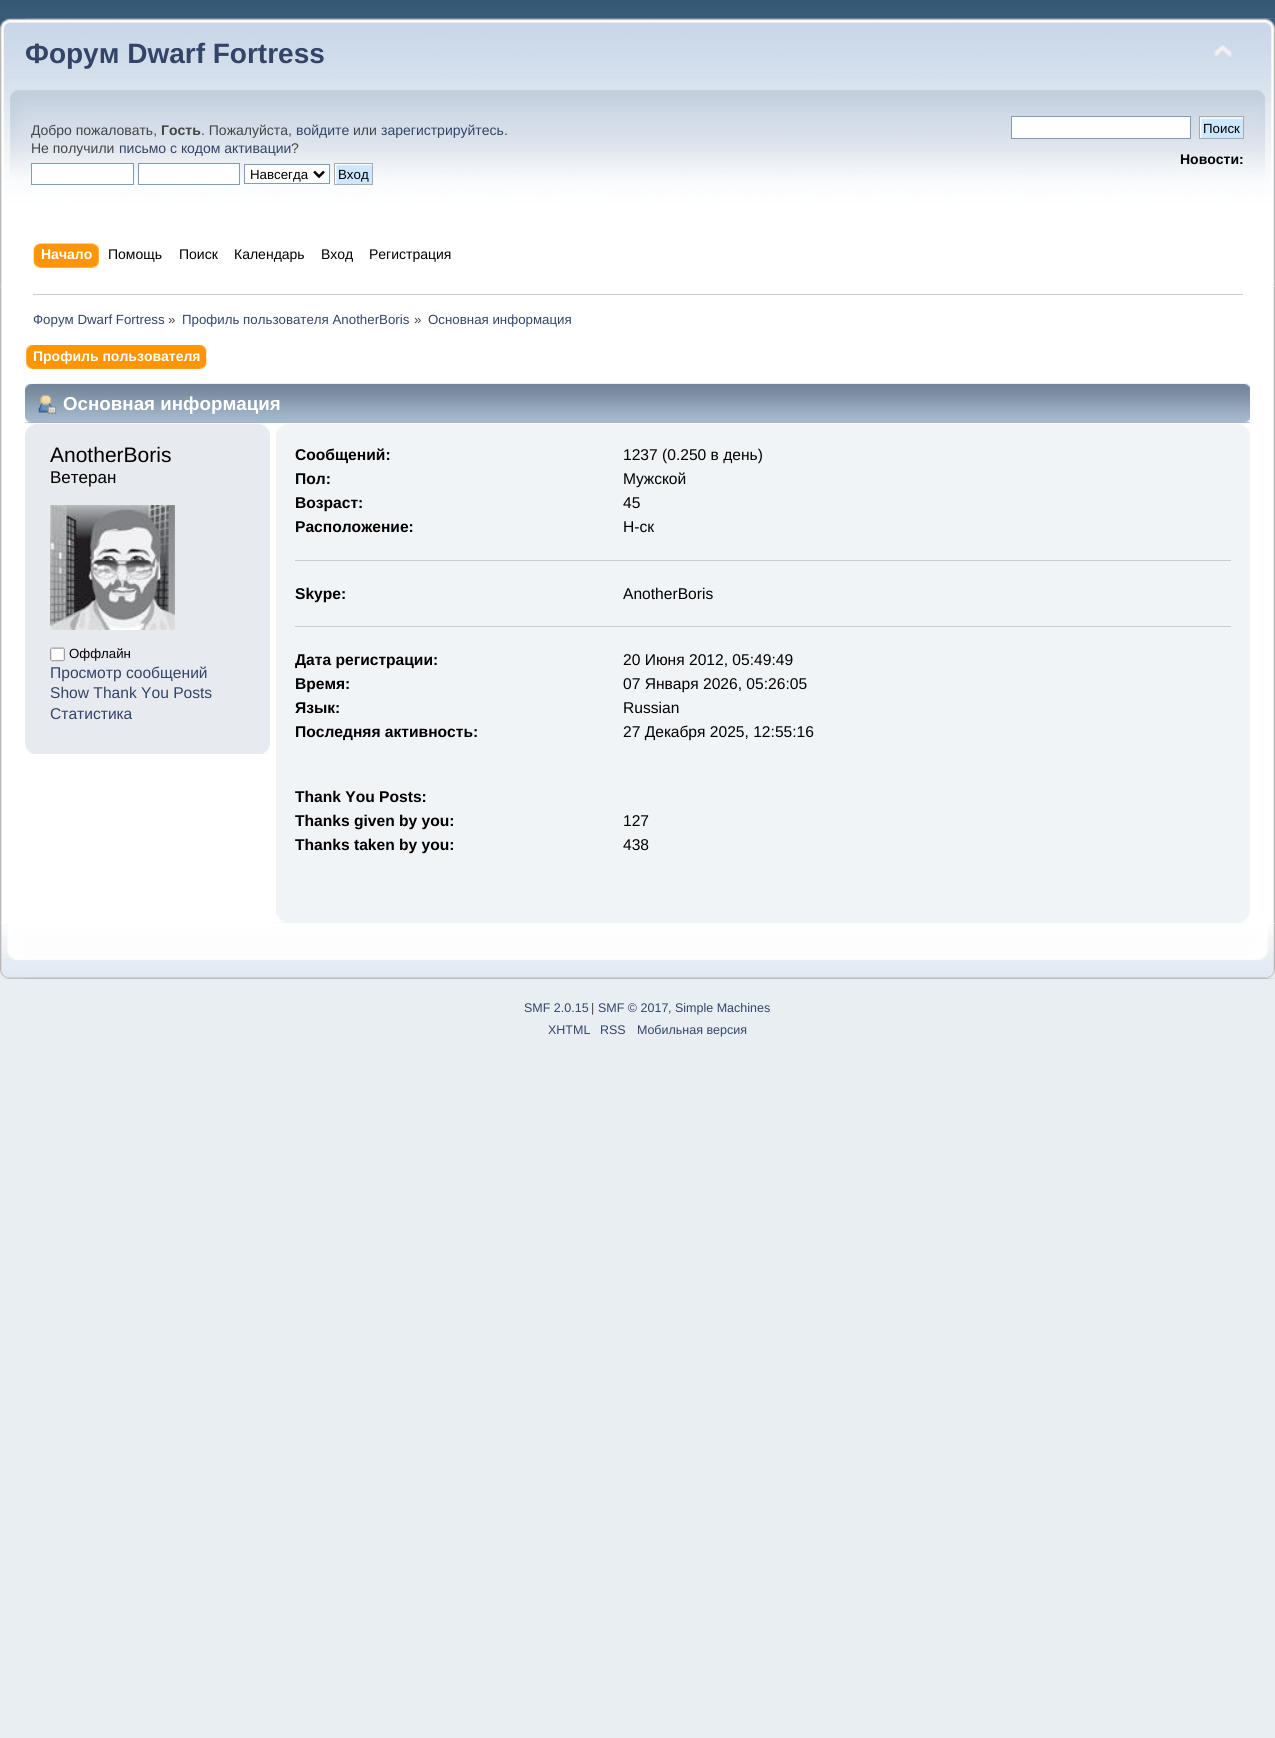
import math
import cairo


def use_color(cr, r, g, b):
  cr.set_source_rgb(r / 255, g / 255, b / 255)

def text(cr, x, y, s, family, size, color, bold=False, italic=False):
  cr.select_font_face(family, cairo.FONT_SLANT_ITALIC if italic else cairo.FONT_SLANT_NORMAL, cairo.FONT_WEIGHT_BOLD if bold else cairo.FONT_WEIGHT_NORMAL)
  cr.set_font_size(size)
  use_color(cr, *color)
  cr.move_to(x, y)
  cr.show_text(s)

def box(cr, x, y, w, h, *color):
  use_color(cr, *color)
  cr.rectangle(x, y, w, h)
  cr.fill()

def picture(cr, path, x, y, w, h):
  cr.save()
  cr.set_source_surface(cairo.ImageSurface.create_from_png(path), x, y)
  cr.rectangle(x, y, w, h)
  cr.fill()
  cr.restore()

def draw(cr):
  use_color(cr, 233, 238, 242)
  cr.paint()
  picture(cr, "img_01.png", 0, 0, 1275, 19)
  picture(cr, "img_02.png", 0, 18, 1275, 268)
  picture(cr, "img_03.png", 25, 18, 1250, 268)
  picture(cr, "img_04.png", 1214, 44, 18, 15)
  use_color(cr, 255, 255, 255)
  cr.rectangle(31.5, 163.5, 102, 21)
  cr.fill_preserve()
  use_color(cr, 127, 157, 185)
  cr.set_line_width(1)
  cr.stroke()
  use_color(cr, 255, 255, 255)
  cr.rectangle(138.5, 163.5, 101, 21)
  cr.fill_preserve()
  use_color(cr, 127, 157, 185)
  cr.stroke()
  use_color(cr, 255, 255, 255)
  cr.rectangle(244.5, 164.5, 85, 19)
  cr.fill_preserve()
  use_color(cr, 127, 157, 185)
  cr.stroke()
  cr.new_path()
  cr.move_to(314, 171.5)
  cr.line_to(319, 176.5)
  cr.line_to(324, 171.5)
  use_color(cr, 0, 0, 0)
  cr.set_line_width(2.5)
  cr.stroke()
  picture(cr, "img_05.png", 335, 164, 37, 20)
  cr.rectangle(334.5, 163.5, 38, 21)
  use_color(cr, 170, 170, 170)
  cr.set_line_width(1)
  cr.stroke()
  use_color(cr, 255, 255, 255)
  cr.rectangle(1011.5, 116.5, 179, 22)
  cr.fill_preserve()
  use_color(cr, 127, 157, 185)
  cr.stroke()
  box(cr, 1200, 117, 43, 1, 205, 231, 255)
  picture(cr, "img_06.png", 1200, 117, 43, 21)
  cr.rectangle(1199.5, 116.5, 44, 22)
  use_color(cr, 170, 170, 170)
  cr.stroke()
  picture(cr, "img_07.png", 40, 243, 59, 25)
  picture(cr, "img_08.png", 33, 243, 60, 25)
  box(cr, 0, 286, 1275, 638, 255, 255, 255)
  picture(cr, "img_09.png", 0, 286, 2, 638)
  picture(cr, "img_10.png", 1273, 286, 2, 638)
  box(cr, 33, 294, 1210, 1, 204, 204, 204)
  picture(cr, "img_11.png", 32, 345, 175, 24)
  picture(cr, "img_12.png", 26, 345, 174, 24)
  box(cr, 25, 422, 1225, 1, 153, 171, 191)
  picture(cr, "img_13.png", 25, 383, 1225, 40)
  picture(cr, "img_14.png", 36, 383, 1214, 40)
  picture(cr, "img_15.png", 38, 394, 19, 20)
  box(cr, 25, 434, 245, 320, 231, 234, 239)
  picture(cr, "img_16.png", 25, 423, 245, 11)
  picture(cr, "img_17.png", 50, 423, 220, 11)
  picture(cr, "img_18.png", 50, 505, 125, 125)
  picture(cr, "img_19.png", 50, 647, 15, 15)
  picture(cr, "img_20.png", 25, 744, 7, 10)
  picture(cr, "img_21.png", 263, 744, 7, 10)
  box(cr, 276, 424, 974, 499, 240, 244, 247)
  picture(cr, "img_22.png", 276, 423, 974, 10)
  picture(cr, "img_23.png", 1240, 424, 10, 9)
  box(cr, 295, 560, 936, 1, 204, 204, 204)
  box(cr, 295, 626, 936, 1, 204, 204, 204)
  picture(cr, "img_24.png", 276, 913, 9, 10)
  picture(cr, "img_25.png", 1241, 913, 9, 10)
  picture(cr, "img_26.png", 0, 923, 1275, 56)
  picture(cr, "img_27.png", 25, 923, 1250, 56)
  text(cr, 25, 63, "Форум Dwarf Fortress", "Liberation Sans", 28, (51, 68, 102), bold=True)
  text(cr, 31, 135, "Добро пожаловать,", "Liberation Sans", 14, (68, 68, 68))
  text(cr, 161, 135, "Гость", "Liberation Sans", 14, (68, 68, 68), bold=True)
  text(cr, 201, 135, ". Пожалуйста,", "Liberation Sans", 14, (68, 68, 68))
  text(cr, 296, 135, "войдите", "Liberation Sans", 14, (51, 68, 102))
  text(cr, 353, 135, "или", "Liberation Sans", 14, (68, 68, 68))
  text(cr, 381, 135, "зарегистрируйтесь", "Liberation Sans", 14, (51, 68, 102))
  text(cr, 504, 135, ".", "Liberation Sans", 14, (68, 68, 68))
  text(cr, 31, 153, "Не получили", "Liberation Sans", 14, (68, 68, 68))
  text(cr, 119, 153, "письмо с кодом активации", "Liberation Sans", 14, (51, 68, 102))
  text(cr, 291, 153, "?", "Liberation Sans", 14, (68, 68, 68))
  text(cr, 250, 179, "Навсегда", "Liberation Sans", 13.3, (0, 0, 0))
  text(cr, 338, 179, "Вход", "Liberation Sans", 13.3, (0, 0, 0))
  text(cr, 1203, 133, "Поиск", "Liberation Sans", 13.3, (0, 0, 0))
  text(cr, 1180, 164, "Новости:", "Liberation Sans", 14, (0, 0, 0), bold=True)
  text(cr, 41, 259, "Начало", "Liberation Sans", 14, (255, 255, 255), bold=True)
  text(cr, 108, 259, "Помощь", "Liberation Sans", 14, (0, 0, 0))
  text(cr, 179, 259, "Поиск", "Liberation Sans", 14, (0, 0, 0))
  text(cr, 234, 259, "Календарь", "Liberation Sans", 14, (0, 0, 0))
  text(cr, 321, 259, "Вход", "Liberation Sans", 14, (0, 0, 0))
  text(cr, 369, 259, "Регистрация", "Liberation Sans", 14, (0, 0, 0))
  text(cr, 33, 324, "Форум Dwarf Fortress", "Liberation Sans", 13.3, (51, 68, 102))
  text(cr, 168, 324, "»", "Liberation Sans", 13.3, (68, 68, 68))
  text(cr, 182, 324, "Профиль пользователя AnotherBoris", "Liberation Sans", 13.3, (51, 68, 102))
  text(cr, 414, 324, "»", "Liberation Sans", 13.3, (68, 68, 68))
  text(cr, 428, 324, "Основная информация", "Liberation Sans", 13.3, (51, 68, 102))
  text(cr, 33, 361, "Профиль пользователя", "Liberation Sans", 14, (255, 255, 255), bold=True)
  text(cr, 63, 410, "Основная информация", "Liberation Sans", 18.75, (255, 255, 255), bold=True)
  text(cr, 50, 462, "AnotherBoris", "Liberation Sans", 21, (0, 0, 0))
  text(cr, 50, 483, "Ветеран", "Liberation Sans", 17, (0, 0, 0))
  text(cr, 69, 658, "Оффлайн", "Liberation Sans", 13.25, (0, 0, 0))
  text(cr, 50, 678, "Просмотр сообщений", "Liberation Sans", 15.6, (51, 68, 102))
  text(cr, 50, 698, "Show Thank You Posts", "Liberation Sans", 15.6, (51, 68, 102))
  text(cr, 50, 719, "Статистика", "Liberation Sans", 15.6, (51, 68, 102))
  text(cr, 295, 460, "Сообщений:", "Liberation Sans", 15.6, (0, 0, 0), bold=True)
  text(cr, 623, 460, "1237 (0.250 в день)", "Liberation Sans", 15.6, (0, 0, 0))
  text(cr, 295, 484, "Пол:", "Liberation Sans", 15.6, (0, 0, 0), bold=True)
  text(cr, 623, 484, "Мужской", "Liberation Sans", 15.6, (0, 0, 0))
  text(cr, 295, 508, "Возраст:", "Liberation Sans", 15.6, (0, 0, 0), bold=True)
  text(cr, 623, 508, "45", "Liberation Sans", 15.6, (0, 0, 0))
  text(cr, 295, 532, "Расположение:", "Liberation Sans", 15.6, (0, 0, 0), bold=True)
  text(cr, 623, 532, "Н-ск", "Liberation Sans", 15.6, (0, 0, 0))
  text(cr, 295, 599, "Skype:", "Liberation Sans", 15.6, (0, 0, 0), bold=True)
  text(cr, 623, 599, "AnotherBoris", "Liberation Sans", 15.6, (0, 0, 0))
  text(cr, 295, 665, "Дата регистрации:", "Liberation Sans", 15.6, (0, 0, 0), bold=True)
  text(cr, 623, 665, "20 Июня 2012, 05:49:49", "Liberation Sans", 15.6, (0, 0, 0))
  text(cr, 295, 689, "Время:", "Liberation Sans", 15.6, (0, 0, 0), bold=True)
  text(cr, 623, 689, "07 Января 2026, 05:26:05", "Liberation Sans", 15.6, (0, 0, 0))
  text(cr, 295, 713, "Язык:", "Liberation Sans", 15.6, (0, 0, 0), bold=True)
  text(cr, 623, 713, "Russian", "Liberation Sans", 15.6, (0, 0, 0))
  text(cr, 295, 737, "Последняя активность:", "Liberation Sans", 15.6, (0, 0, 0), bold=True)
  text(cr, 623, 737, "27 Декабря 2025, 12:55:16", "Liberation Sans", 15.6, (0, 0, 0))
  text(cr, 295, 802, "Thank You Posts:", "Liberation Sans", 15.6, (0, 0, 0), bold=True)
  text(cr, 295, 826, "Thanks given by you:", "Liberation Sans", 15.6, (0, 0, 0), bold=True)
  text(cr, 623, 826, "127", "Liberation Sans", 15.6, (0, 0, 0))
  text(cr, 295, 850, "Thanks taken by you:", "Liberation Sans", 15.6, (0, 0, 0), bold=True)
  text(cr, 623, 850, "438", "Liberation Sans", 15.6, (0, 0, 0))
  text(cr, 524, 1012, "SMF 2.0.15", "Liberation Sans", 12.5, (51, 68, 102))
  text(cr, 591, 1012, "|", "Liberation Sans", 12.5, (68, 68, 68))
  text(cr, 598, 1012, "SMF © 2017", "Liberation Sans", 12.5, (51, 68, 102))
  text(cr, 668, 1012, ",", "Liberation Sans", 12.5, (68, 68, 68))
  text(cr, 675, 1012, "Simple Machines", "Liberation Sans", 12.5, (51, 68, 102))
  text(cr, 548, 1034, "XHTML", "Liberation Sans", 12.5, (51, 68, 102))
  text(cr, 600, 1034, "RSS", "Liberation Sans", 12.5, (51, 68, 102))
  text(cr, 637, 1034, "Мобильная версия", "Liberation Sans", 12.5, (51, 68, 102))


surface = cairo.ImageSurface(cairo.FORMAT_RGB24, 1275, 1738)
cr = cairo.Context(surface)
options = cairo.FontOptions()
options.set_hint_metrics(cairo.HINT_METRICS_OFF)
options.set_hint_style(cairo.HINT_STYLE_NONE)
cr.set_font_options(options)
cr.set_miter_limit(4)
draw(cr)
surface.write_to_png("out.png")
